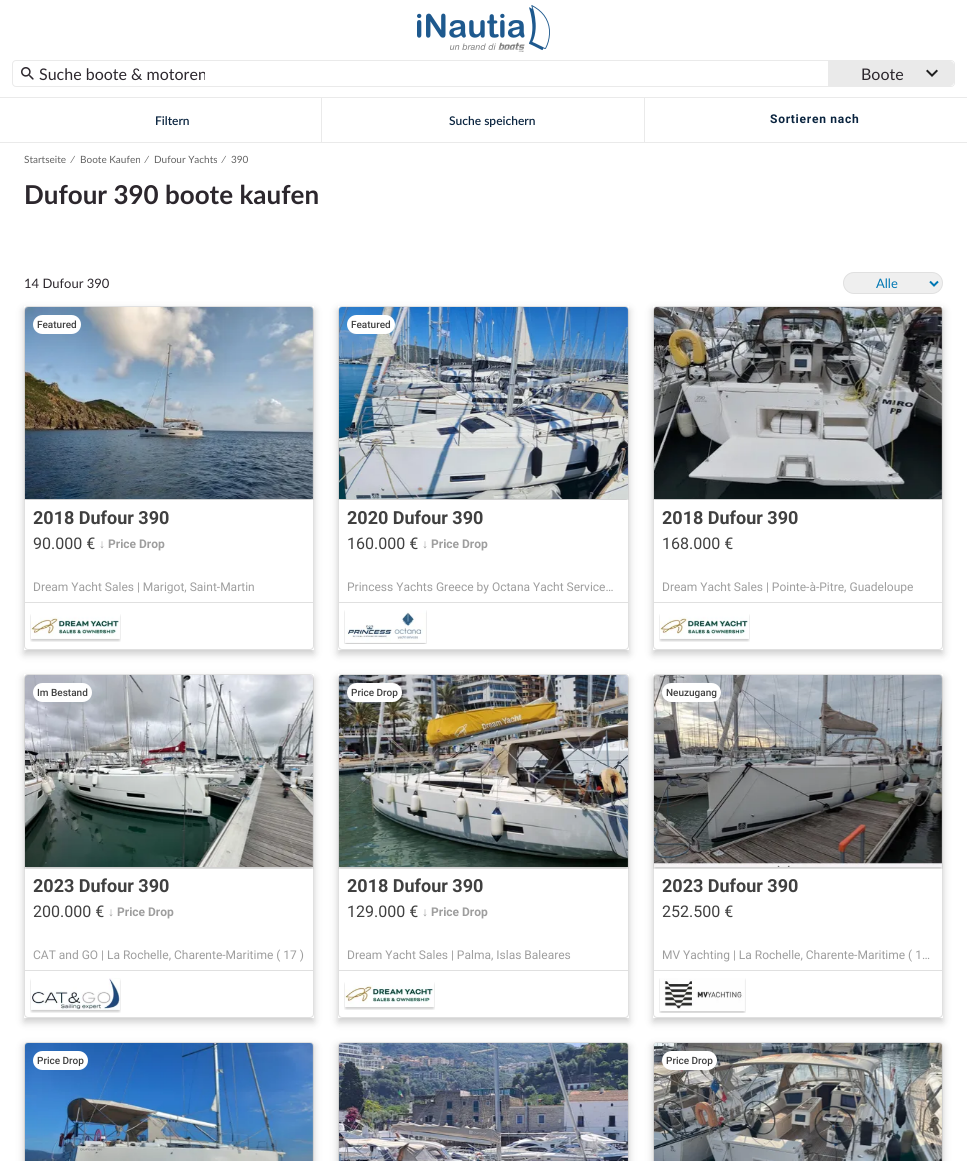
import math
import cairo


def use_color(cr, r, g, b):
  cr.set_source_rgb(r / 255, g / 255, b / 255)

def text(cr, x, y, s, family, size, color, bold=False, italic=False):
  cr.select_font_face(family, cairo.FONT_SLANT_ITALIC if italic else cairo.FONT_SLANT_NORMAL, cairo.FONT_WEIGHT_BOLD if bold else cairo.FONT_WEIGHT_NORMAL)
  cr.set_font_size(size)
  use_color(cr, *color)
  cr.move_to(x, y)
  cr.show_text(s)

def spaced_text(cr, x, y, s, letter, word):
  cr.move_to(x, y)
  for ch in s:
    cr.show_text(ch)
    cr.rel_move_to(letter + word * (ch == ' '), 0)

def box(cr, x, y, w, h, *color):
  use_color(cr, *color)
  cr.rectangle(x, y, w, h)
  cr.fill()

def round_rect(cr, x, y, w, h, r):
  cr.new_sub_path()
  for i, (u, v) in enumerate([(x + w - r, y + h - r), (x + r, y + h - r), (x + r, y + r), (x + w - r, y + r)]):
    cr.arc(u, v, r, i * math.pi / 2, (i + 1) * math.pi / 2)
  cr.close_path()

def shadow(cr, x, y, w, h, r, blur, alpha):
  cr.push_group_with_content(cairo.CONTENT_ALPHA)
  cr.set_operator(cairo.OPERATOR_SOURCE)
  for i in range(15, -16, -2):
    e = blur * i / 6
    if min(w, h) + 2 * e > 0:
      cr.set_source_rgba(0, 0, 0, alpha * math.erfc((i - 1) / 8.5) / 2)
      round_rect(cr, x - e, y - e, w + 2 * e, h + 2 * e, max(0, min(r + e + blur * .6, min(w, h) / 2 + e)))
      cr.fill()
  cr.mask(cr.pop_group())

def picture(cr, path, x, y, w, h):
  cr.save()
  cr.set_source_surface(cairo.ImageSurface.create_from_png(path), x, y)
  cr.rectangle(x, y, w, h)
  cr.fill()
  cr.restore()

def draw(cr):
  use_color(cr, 255, 255, 255)
  cr.paint()
  picture(cr, "img_01.png", 417, 5, 133, 47)
  round_rect(cr, 12.5, 60.5, 942, 26, 3.5)
  use_color(cr, 234, 234, 234)
  cr.set_line_width(1)
  cr.stroke()
  picture(cr, "img_02.png", 21, 67, 13, 13)
  cr.new_path()
  cr.move_to(828, 61)
  cr.line_to(950, 61)
  cr.curve_to(952, 61, 954, 63, 954, 65)
  cr.line_to(954, 82)
  cr.curve_to(954, 84, 952, 86, 950, 86)
  cr.line_to(828, 86)
  cr.close_path()
  cr.fill()
  picture(cr, "img_03.png", 926, 69, 12, 8)
  box(cr, 0, 97, 967, 1, 234, 234, 234)
  box(cr, 0, 142, 967, 1, 234, 234, 234)
  box(cr, 321, 98, 1, 44, 234, 234, 234)
  box(cr, 644, 98, 1, 44, 234, 234, 234)
  use_color(cr, 239, 239, 239)
  round_rect(cr, 843.5, 272.5, 99, 21, 10.5)
  cr.fill_preserve()
  use_color(cr, 224, 224, 224)
  cr.stroke()
  cr.new_path()
  cr.move_to(930, 281.5)
  cr.line_to(934, 285.5)
  cr.line_to(938, 281.5)
  use_color(cr, 0, 119, 179)
  cr.set_line_width(2)
  cr.stroke()
  cr.save()
  cr.set_fill_rule(cairo.FILL_RULE_EVEN_ODD)
  cr.new_path()
  cr.move_to(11, 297)
  cr.line_to(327, 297)
  cr.line_to(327, 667)
  cr.line_to(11, 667)
  cr.close_path()
  cr.move_to(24, 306)
  cr.line_to(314, 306)
  cr.line_to(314, 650)
  cr.line_to(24, 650)
  cr.close_path()
  cr.clip()
  use_color(cr, 0, 0, 0)
  shadow(cr, 24, 310, 290, 344, 0, 4, 0.2)
  cr.restore()
  round_rect(cr, 24.5, 306.5, 289, 343, 3.5)
  use_color(cr, 224, 224, 224)
  cr.set_line_width(1)
  cr.stroke()
  picture(cr, "img_04.png", 24, 307, 290, 193)
  use_color(cr, 255, 255, 255)
  round_rect(cr, 33, 315, 48, 19, 9.5)
  cr.fill()
  box(cr, 25, 602, 288, 1, 224, 224, 224)
  picture(cr, "img_05.png", 30, 614, 91, 28)
  cr.save()
  cr.set_fill_rule(cairo.FILL_RULE_EVEN_ODD)
  cr.new_path()
  cr.move_to(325, 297)
  cr.line_to(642, 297)
  cr.line_to(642, 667)
  cr.line_to(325, 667)
  cr.close_path()
  cr.move_to(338, 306)
  cr.line_to(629, 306)
  cr.line_to(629, 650)
  cr.line_to(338, 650)
  cr.close_path()
  cr.clip()
  use_color(cr, 0, 0, 0)
  shadow(cr, 338, 310, 291, 344, 0, 4, 0.2)
  cr.restore()
  round_rect(cr, 338.5, 306.5, 290, 343, 3.5)
  cr.stroke()
  picture(cr, "img_06.png", 338, 307, 291, 193)
  use_color(cr, 255, 255, 255)
  round_rect(cr, 347, 315, 48, 19, 9.5)
  cr.fill()
  box(cr, 339, 602, 289, 1, 224, 224, 224)
  picture(cr, "img_07.png", 344, 610, 83, 34)
  cr.save()
  cr.set_fill_rule(cairo.FILL_RULE_EVEN_ODD)
  cr.new_path()
  cr.move_to(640, 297)
  cr.line_to(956, 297)
  cr.line_to(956, 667)
  cr.line_to(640, 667)
  cr.close_path()
  cr.move_to(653, 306)
  cr.line_to(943, 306)
  cr.line_to(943, 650)
  cr.line_to(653, 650)
  cr.close_path()
  cr.clip()
  use_color(cr, 0, 0, 0)
  shadow(cr, 653, 310, 290, 344, 0, 4, 0.2)
  cr.restore()
  round_rect(cr, 653.5, 306.5, 289, 343, 3.5)
  cr.stroke()
  picture(cr, "img_08.png", 653, 307, 290, 193)
  box(cr, 654, 602, 288, 1, 224, 224, 224)
  picture(cr, "img_09.png", 659, 614, 91, 28)
  cr.save()
  cr.set_fill_rule(cairo.FILL_RULE_EVEN_ODD)
  cr.new_path()
  cr.move_to(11, 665)
  cr.line_to(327, 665)
  cr.line_to(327, 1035)
  cr.line_to(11, 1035)
  cr.close_path()
  cr.move_to(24, 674)
  cr.line_to(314, 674)
  cr.line_to(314, 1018)
  cr.line_to(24, 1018)
  cr.close_path()
  cr.clip()
  use_color(cr, 0, 0, 0)
  shadow(cr, 24, 678, 290, 344, 0, 4, 0.2)
  cr.restore()
  round_rect(cr, 24.5, 674.5, 289, 343, 3.5)
  cr.stroke()
  picture(cr, "img_10.png", 24, 675, 290, 194)
  use_color(cr, 255, 255, 255)
  round_rect(cr, 33, 683, 59, 19, 9.5)
  cr.fill()
  box(cr, 25, 970, 288, 1, 224, 224, 224)
  picture(cr, "img_11.png", 30, 978, 91, 35)
  cr.save()
  cr.set_fill_rule(cairo.FILL_RULE_EVEN_ODD)
  cr.new_path()
  cr.move_to(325, 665)
  cr.line_to(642, 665)
  cr.line_to(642, 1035)
  cr.line_to(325, 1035)
  cr.close_path()
  cr.move_to(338, 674)
  cr.line_to(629, 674)
  cr.line_to(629, 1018)
  cr.line_to(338, 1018)
  cr.close_path()
  cr.clip()
  use_color(cr, 0, 0, 0)
  shadow(cr, 338, 678, 291, 344, 0, 4, 0.2)
  cr.restore()
  round_rect(cr, 338.5, 674.5, 290, 343, 3.5)
  cr.stroke()
  picture(cr, "img_12.png", 338, 675, 291, 194)
  use_color(cr, 255, 255, 255)
  round_rect(cr, 347, 683, 55, 19, 9.5)
  cr.fill()
  box(cr, 339, 970, 289, 1, 224, 224, 224)
  picture(cr, "img_13.png", 344, 982, 91, 28)
  cr.save()
  cr.set_fill_rule(cairo.FILL_RULE_EVEN_ODD)
  cr.new_path()
  cr.move_to(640, 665)
  cr.line_to(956, 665)
  cr.line_to(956, 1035)
  cr.line_to(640, 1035)
  cr.close_path()
  cr.move_to(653, 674)
  cr.line_to(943, 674)
  cr.line_to(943, 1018)
  cr.line_to(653, 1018)
  cr.close_path()
  cr.clip()
  use_color(cr, 0, 0, 0)
  shadow(cr, 653, 678, 290, 344, 0, 4, 0.2)
  cr.restore()
  round_rect(cr, 653.5, 674.5, 289, 343, 3.5)
  cr.stroke()
  picture(cr, "img_14.png", 653, 675, 290, 194)
  use_color(cr, 255, 255, 255)
  round_rect(cr, 662, 683, 59, 19, 9.5)
  cr.fill()
  box(cr, 654, 970, 288, 1, 224, 224, 224)
  picture(cr, "img_15.png", 659, 978, 87, 35)
  use_color(cr, 0, 0, 0)
  shadow(cr, 24, 1046, 290, 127, 0, 4, 0.2)
  round_rect(cr, 24.5, 1042.5, 289, 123, 3.5)
  use_color(cr, 224, 224, 224)
  cr.stroke()
  picture(cr, "img_16.png", 24, 1043, 290, 118)
  use_color(cr, 255, 255, 255)
  round_rect(cr, 33, 1051, 55, 19, 9.5)
  cr.fill()
  use_color(cr, 0, 0, 0)
  shadow(cr, 338, 1046, 291, 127, 0, 4, 0.2)
  round_rect(cr, 338.5, 1042.5, 290, 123, 3.5)
  use_color(cr, 224, 224, 224)
  cr.stroke()
  picture(cr, "img_17.png", 338, 1043, 291, 118)
  use_color(cr, 0, 0, 0)
  shadow(cr, 653, 1046, 290, 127, 0, 4, 0.2)
  round_rect(cr, 653.5, 1042.5, 289, 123, 3.5)
  use_color(cr, 224, 224, 224)
  cr.stroke()
  picture(cr, "img_18.png", 653, 1043, 290, 118)
  use_color(cr, 255, 255, 255)
  round_rect(cr, 662, 1051, 55, 19, 9.5)
  cr.fill()
  cr.save()
  cr.rectangle(39, 64, 166, 19)
  cr.clip()
  text(cr, 39, 80, "Suche boote & motoren", "Lato", 16, (44, 39, 45))
  cr.restore()
  text(cr, 861, 80, "Boote", "Lato", 16, (44, 39, 45))
  text(cr, 155, 125, "Filtern", "Lato SemiBold", 12, (10, 36, 63))
  text(cr, 449, 125, "Suche speichern", "Lato SemiBold", 12, (10, 36, 63))
  cr.select_font_face("Roboto", cairo.FONT_SLANT_NORMAL, cairo.FONT_WEIGHT_BOLD)
  spaced_text(cr, 770, 123, "Sortieren nach", 0.75, 0)
  text(cr, 24, 163, "Startseite", "Lato", 10, (98, 98, 98))
  text(cr, 72, 163, "⁄", "Lato", 10, (98, 98, 98))
  text(cr, 80, 163, "Boote Kaufen", "Lato", 10, (98, 98, 98))
  text(cr, 146, 163, "⁄", "Lato", 10, (98, 98, 98))
  text(cr, 154, 163, "Dufour Yachts", "Lato", 10, (98, 98, 98))
  text(cr, 223, 163, "⁄", "Lato", 10, (98, 98, 98))
  text(cr, 231, 163, "390", "Lato", 10, (98, 98, 98))
  text(cr, 24, 204, "Dufour 390 boote kaufen", "Lato", 26, (44, 39, 45), bold=True)
  text(cr, 24, 288, "14 Dufour 390", "Lato", 13, (44, 39, 45))
  text(cr, 876, 288, "Alle", "Lato", 13, (0, 119, 179))
  text(cr, 37, 328, "Featured", "Roboto Medium", 10, (64, 64, 64))
  text(cr, 33, 524, "2018 Dufour 390", "Roboto", 18, (64, 64, 64), bold=True)
  text(cr, 33, 549, "90.000 €", "Roboto", 16, (64, 64, 64))
  text(cr, 99, 548, "↓", "Liberation Sans", 12, (158, 158, 158), bold=True)
  text(cr, 108, 548, "Price Drop", "Roboto", 12, (158, 158, 158), bold=True)
  text(cr, 33, 591, "Dream Yacht Sales | Marigot, Saint-Martin", "Roboto", 12, (158, 158, 158))
  text(cr, 351, 328, "Featured", "Roboto Medium", 10, (64, 64, 64))
  text(cr, 347, 524, "2020 Dufour 390", "Roboto", 18, (64, 64, 64), bold=True)
  text(cr, 347, 549, "160.000 €", "Roboto", 16, (64, 64, 64))
  text(cr, 422, 548, "↓", "Liberation Sans", 12, (158, 158, 158), bold=True)
  text(cr, 431, 548, "Price Drop", "Roboto", 12, (158, 158, 158), bold=True)
  text(cr, 347, 591, "Princess Yachts Greece by Octana Yacht Service…", "Roboto", 12, (158, 158, 158))
  text(cr, 662, 524, "2018 Dufour 390", "Roboto", 18, (64, 64, 64), bold=True)
  text(cr, 662, 549, "168.000 €", "Roboto", 16, (64, 64, 64))
  text(cr, 662, 591, "Dream Yacht Sales | Pointe-à-Pitre, Guadeloupe", "Roboto", 12, (158, 158, 158))
  text(cr, 37, 696, "Im Bestand", "Roboto Medium", 10, (64, 64, 64))
  text(cr, 33, 892, "2023 Dufour 390", "Roboto", 18, (64, 64, 64), bold=True)
  text(cr, 33, 917, "200.000 €", "Roboto", 16, (64, 64, 64))
  text(cr, 108, 916, "↓", "Liberation Sans", 12, (158, 158, 158), bold=True)
  text(cr, 117, 916, "Price Drop", "Roboto", 12, (158, 158, 158), bold=True)
  text(cr, 33, 959, "CAT and GO | La Rochelle, Charente-Maritime ( 17 )", "Roboto", 12, (158, 158, 158))
  text(cr, 351, 696, "Price Drop", "Roboto Medium", 10, (64, 64, 64))
  text(cr, 347, 892, "2018 Dufour 390", "Roboto", 18, (64, 64, 64), bold=True)
  text(cr, 347, 917, "129.000 €", "Roboto", 16, (64, 64, 64))
  text(cr, 422, 916, "↓", "Liberation Sans", 12, (158, 158, 158), bold=True)
  text(cr, 431, 916, "Price Drop", "Roboto", 12, (158, 158, 158), bold=True)
  text(cr, 347, 959, "Dream Yacht Sales | Palma, Islas Baleares", "Roboto", 12, (158, 158, 158))
  text(cr, 666, 696, "Neuzugang", "Roboto Medium", 10, (64, 64, 64))
  text(cr, 662, 892, "2023 Dufour 390", "Roboto", 18, (64, 64, 64), bold=True)
  text(cr, 662, 917, "252.500 €", "Roboto", 16, (64, 64, 64))
  text(cr, 662, 959, "MV Yachting | La Rochelle, Charente-Maritime ( 1…", "Roboto", 12, (158, 158, 158))
  text(cr, 37, 1064, "Price Drop", "Roboto Medium", 10, (64, 64, 64))
  text(cr, 666, 1064, "Price Drop", "Roboto Medium", 10, (64, 64, 64))


surface = cairo.ImageSurface(cairo.FORMAT_RGB24, 967, 1161)
cr = cairo.Context(surface)
options = cairo.FontOptions()
options.set_hint_metrics(cairo.HINT_METRICS_OFF)
options.set_hint_style(cairo.HINT_STYLE_NONE)
cr.set_font_options(options)
cr.set_miter_limit(4)
draw(cr)
surface.write_to_png("out.png")
